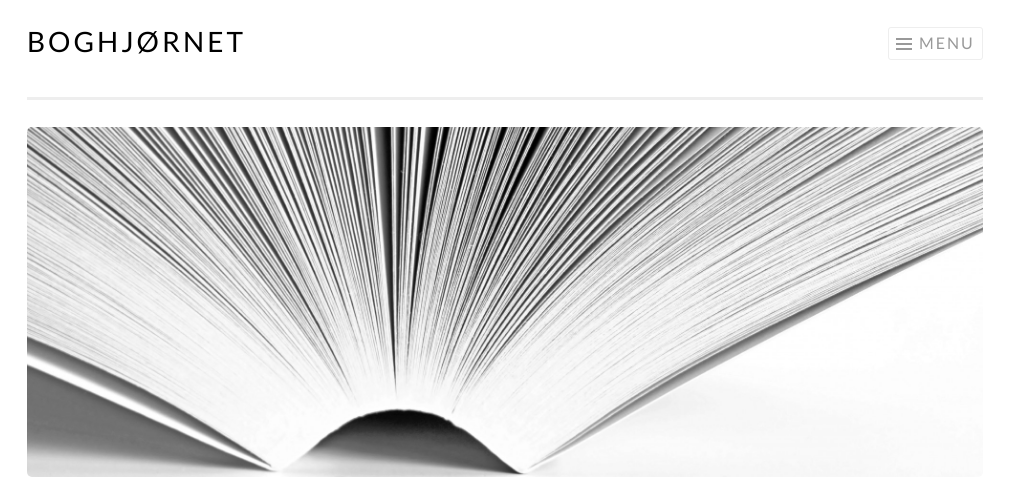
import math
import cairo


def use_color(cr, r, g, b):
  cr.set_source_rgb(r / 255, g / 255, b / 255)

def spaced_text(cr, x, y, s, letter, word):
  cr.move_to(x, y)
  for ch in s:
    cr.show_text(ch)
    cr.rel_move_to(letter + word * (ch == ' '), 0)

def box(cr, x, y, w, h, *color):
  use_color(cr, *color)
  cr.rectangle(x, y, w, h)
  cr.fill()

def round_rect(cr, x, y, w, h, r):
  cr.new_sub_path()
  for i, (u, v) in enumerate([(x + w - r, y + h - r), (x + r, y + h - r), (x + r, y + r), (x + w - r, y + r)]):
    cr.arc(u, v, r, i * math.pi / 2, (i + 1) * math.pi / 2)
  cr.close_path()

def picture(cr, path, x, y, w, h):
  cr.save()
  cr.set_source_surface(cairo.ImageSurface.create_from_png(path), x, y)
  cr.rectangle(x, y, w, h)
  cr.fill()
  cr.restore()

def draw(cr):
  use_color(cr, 255, 255, 255)
  cr.paint()
  box(cr, 27, 97, 956, 3, 238, 238, 238)
  round_rect(cr, 888.5, 27.5, 94, 32, 2.5)
  cr.set_line_width(1)
  cr.stroke()
  picture(cr, "img_01.png", 896, 38, 16, 12)
  picture(cr, "img_02.png", 27, 127, 956, 350)
  cr.select_font_face("Lato")
  cr.set_font_size(28)
  use_color(cr, 0, 0, 0)
  spaced_text(cr, 27, 52, "BOGHJØRNET", 3, 0)
  cr.set_font_size(16)
  use_color(cr, 153, 153, 153)
  spaced_text(cr, 919, 49, "MENU", 2, 0)


surface = cairo.ImageSurface(cairo.FORMAT_RGB24, 1010, 485)
cr = cairo.Context(surface)
options = cairo.FontOptions()
options.set_hint_metrics(cairo.HINT_METRICS_OFF)
options.set_hint_style(cairo.HINT_STYLE_NONE)
cr.set_font_options(options)
cr.set_miter_limit(4)
draw(cr)
surface.write_to_png("out.png")
